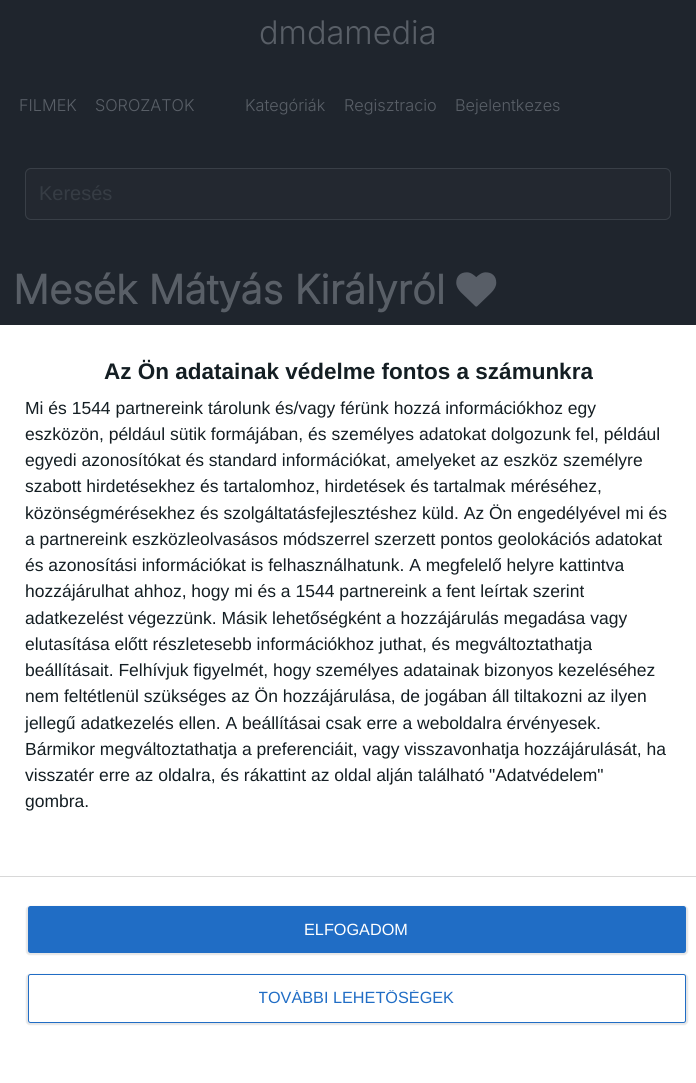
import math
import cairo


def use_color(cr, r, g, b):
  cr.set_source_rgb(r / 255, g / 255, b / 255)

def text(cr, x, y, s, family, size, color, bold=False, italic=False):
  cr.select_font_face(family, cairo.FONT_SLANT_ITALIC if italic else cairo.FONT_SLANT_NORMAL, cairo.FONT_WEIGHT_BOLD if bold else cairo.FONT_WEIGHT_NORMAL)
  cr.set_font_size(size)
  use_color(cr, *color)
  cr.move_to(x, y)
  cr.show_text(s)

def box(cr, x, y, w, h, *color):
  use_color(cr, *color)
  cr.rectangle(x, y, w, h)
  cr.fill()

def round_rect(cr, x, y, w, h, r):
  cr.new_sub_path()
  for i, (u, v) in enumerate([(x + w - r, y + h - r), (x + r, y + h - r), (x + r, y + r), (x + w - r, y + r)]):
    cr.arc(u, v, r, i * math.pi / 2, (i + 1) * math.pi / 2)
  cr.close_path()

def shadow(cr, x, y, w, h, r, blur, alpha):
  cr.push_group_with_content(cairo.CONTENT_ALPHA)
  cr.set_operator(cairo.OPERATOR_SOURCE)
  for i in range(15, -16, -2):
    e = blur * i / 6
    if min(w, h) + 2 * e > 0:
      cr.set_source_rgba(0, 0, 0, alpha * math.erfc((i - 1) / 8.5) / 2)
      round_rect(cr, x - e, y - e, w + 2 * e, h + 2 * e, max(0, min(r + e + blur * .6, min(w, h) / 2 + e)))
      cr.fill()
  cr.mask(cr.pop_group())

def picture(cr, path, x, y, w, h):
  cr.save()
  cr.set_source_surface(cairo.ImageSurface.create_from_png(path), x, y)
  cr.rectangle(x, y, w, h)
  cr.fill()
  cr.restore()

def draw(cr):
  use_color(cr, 31, 37, 45)
  cr.paint()
  use_color(cr, 35, 40, 48)
  round_rect(cr, 25.5, 168.5, 645, 51, 5.5)
  cr.fill_preserve()
  use_color(cr, 57, 63, 71)
  cr.set_line_width(1)
  cr.stroke()
  picture(cr, "img_01.png", 456, 272, 41, 35)
  box(cr, 0, 325, 696, 758, 255, 255, 255)
  box(cr, 0, 876, 696, 1, 216, 216, 216)
  use_color(cr, 0, 0, 0)
  shadow(cr, 26, 906, 662, 49, 4, 0.5, 0.1)
  use_color(cr, 32, 109, 197)
  round_rect(cr, 28, 906, 658, 47, 2.5)
  cr.fill()
  use_color(cr, 0, 0, 0)
  shadow(cr, 26, 974, 662, 51, 4, 0.5, 0.1)
  use_color(cr, 255, 255, 255)
  round_rect(cr, 28.5, 974.5, 657, 48, 2)
  cr.fill_preserve()
  use_color(cr, 32, 109, 197)
  cr.stroke()
  text(cr, 259, 44, "dmdamedia", "Inter Light", 32.5, (89, 95, 103))
  text(cr, 19, 111, "FILMEK", "Inter Light", 16.25, (89, 95, 103))
  text(cr, 95, 111, "SOROZATOK", "Inter Light", 16.25, (89, 95, 103))
  text(cr, 245, 111, "Kategóriák", "Inter Light", 16.25, (89, 95, 103))
  text(cr, 344, 111, "Regisztracio", "Inter Light", 16.25, (89, 95, 103))
  text(cr, 455, 111, "Bejelentkezes", "Inter Light", 16.25, (89, 95, 103))
  text(cr, 39, 200, "Keresés", "Liberation Sans", 20, (54, 60, 68))
  text(cr, 13, 304, "Mesék Mátyás Királyról", "Inter", 40, (89, 95, 103), bold=True)
  text(cr, 104, 379, "Az Ön adatainak védelme fontos a számunkra", "Liberation Sans", 22.5, (20, 30, 35), bold=True)
  text(cr, 25, 414, "Mi és 1544 partnereink tárolunk és/vagy férünk hozzá információkhoz egy", "Liberation Sans", 17.5, (20, 30, 35))
  text(cr, 25, 440, "eszközön, például sütik formájában, és személyes adatokat dolgozunk fel, például", "Liberation Sans", 17.5, (20, 30, 35))
  text(cr, 25, 466, "egyedi azonosítókat és standard információkat, amelyeket az eszköz személyre", "Liberation Sans", 17.5, (20, 30, 35))
  text(cr, 25, 492, "szabott hirdetésekhez és tartalomhoz, hirdetések és tartalmak méréséhez,", "Liberation Sans", 17.5, (20, 30, 35))
  text(cr, 25, 519, "közönségmérésekhez és szolgáltatásfejlesztéshez küld. Az Ön engedélyével mi és", "Liberation Sans", 17.5, (20, 30, 35))
  text(cr, 25, 545, "a partnereink eszközleolvasásos módszerrel szerzett pontos geolokációs adatokat", "Liberation Sans", 17.5, (20, 30, 35))
  text(cr, 25, 571, "és azonosítási információkat is felhasználhatunk. A megfelelő helyre kattintva", "Liberation Sans", 17.5, (20, 30, 35))
  text(cr, 25, 597, "hozzájárulhat ahhoz, hogy mi és a 1544 partnereink a fent leírtak szerint", "Liberation Sans", 17.5, (20, 30, 35))
  text(cr, 25, 624, "adatkezelést végezzünk. Másik lehetőségként a hozzájárulás megadása vagy", "Liberation Sans", 17.5, (20, 30, 35))
  text(cr, 25, 650, "elutasítása előtt részletesebb információkhoz juthat, és megváltoztathatja", "Liberation Sans", 17.5, (20, 30, 35))
  text(cr, 25, 676, "beállításait. Felhívjuk figyelmét, hogy személyes adatainak bizonyos kezeléséhez", "Liberation Sans", 17.5, (20, 30, 35))
  text(cr, 25, 702, "nem feltétlenül szükséges az Ön hozzájárulása, de jogában áll tiltakozni az ilyen", "Liberation Sans", 17.5, (20, 30, 35))
  text(cr, 25, 729, "jellegű adatkezelés ellen. A beállításai csak erre a weboldalra érvényesek.", "Liberation Sans", 17.5, (20, 30, 35))
  text(cr, 25, 755, "Bármikor megváltoztathatja a preferenciáit, vagy visszavonhatja hozzájárulását, ha", "Liberation Sans", 17.5, (20, 30, 35))
  text(cr, 25, 781, "visszatér erre az oldalra, és rákattint az oldal alján található \"Adatvédelem\"", "Liberation Sans", 17.5, (20, 30, 35))
  text(cr, 25, 807, "gombra.", "Liberation Sans", 17.5, (20, 30, 35))
  text(cr, 304, 935, "ELFOGADOM", "Liberation Sans", 16.25, (255, 255, 255))
  cr.save()
  cr.rectangle(259, 990, 195, 16)
  cr.clip()
  text(cr, 258, 1003, "TOVÁBBI LEHETŐSÉGEK", "Liberation Sans", 16.25, (32, 109, 197))
  cr.restore()


surface = cairo.ImageSurface(cairo.FORMAT_RGB24, 696, 1083)
cr = cairo.Context(surface)
options = cairo.FontOptions()
options.set_hint_metrics(cairo.HINT_METRICS_OFF)
options.set_hint_style(cairo.HINT_STYLE_NONE)
cr.set_font_options(options)
cr.set_miter_limit(4)
draw(cr)
surface.write_to_png("out.png")
